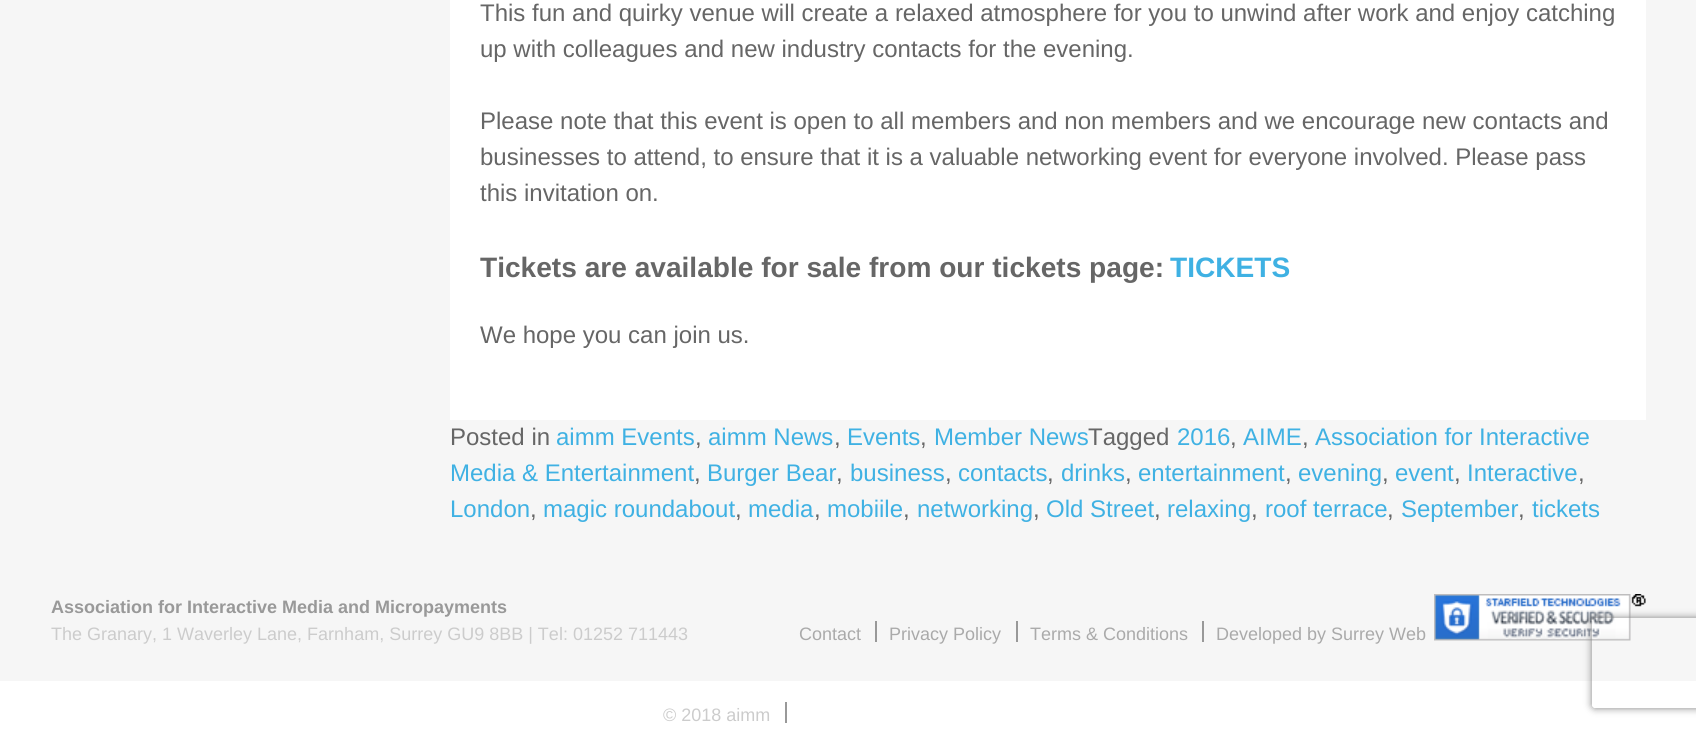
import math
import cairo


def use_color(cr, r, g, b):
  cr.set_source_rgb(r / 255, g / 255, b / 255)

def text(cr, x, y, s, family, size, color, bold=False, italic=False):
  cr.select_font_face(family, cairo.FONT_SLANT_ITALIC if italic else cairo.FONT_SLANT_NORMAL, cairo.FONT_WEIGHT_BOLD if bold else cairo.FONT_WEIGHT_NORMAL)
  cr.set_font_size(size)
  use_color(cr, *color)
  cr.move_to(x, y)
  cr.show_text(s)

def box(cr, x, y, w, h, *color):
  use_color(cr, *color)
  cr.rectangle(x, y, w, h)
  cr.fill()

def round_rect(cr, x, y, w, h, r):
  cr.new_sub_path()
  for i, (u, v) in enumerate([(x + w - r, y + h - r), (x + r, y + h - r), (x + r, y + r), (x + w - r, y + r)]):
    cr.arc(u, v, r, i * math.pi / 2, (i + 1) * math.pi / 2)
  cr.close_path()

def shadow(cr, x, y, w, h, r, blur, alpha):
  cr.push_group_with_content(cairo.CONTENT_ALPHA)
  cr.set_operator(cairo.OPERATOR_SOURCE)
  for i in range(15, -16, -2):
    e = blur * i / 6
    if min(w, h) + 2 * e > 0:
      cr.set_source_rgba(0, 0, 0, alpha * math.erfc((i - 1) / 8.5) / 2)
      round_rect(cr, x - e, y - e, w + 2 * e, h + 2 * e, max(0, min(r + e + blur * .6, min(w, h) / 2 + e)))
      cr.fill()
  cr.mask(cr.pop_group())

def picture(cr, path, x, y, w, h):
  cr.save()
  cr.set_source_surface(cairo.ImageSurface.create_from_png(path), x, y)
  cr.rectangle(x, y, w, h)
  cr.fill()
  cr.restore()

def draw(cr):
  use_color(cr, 255, 255, 255)
  cr.paint()
  box(cr, 0, 0, 1696, 681, 246, 246, 246)
  box(cr, 450, 0, 1196, 420, 255, 255, 255)
  box(cr, 875, 621, 2, 21, 153, 153, 153)
  box(cr, 1016, 621, 2, 21, 153, 153, 153)
  box(cr, 1202, 621, 2, 21, 153, 153, 153)
  picture(cr, "img_01.png", 1434, 594, 212, 47)
  box(cr, 785, 702, 2, 21, 153, 153, 153)
  cr.save()
  cr.set_fill_rule(cairo.FILL_RULE_EVEN_ODD)
  cr.new_path()
  cr.move_to(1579, 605)
  cr.line_to(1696, 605)
  cr.line_to(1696, 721)
  cr.line_to(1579, 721)
  cr.close_path()
  cr.move_to(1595, 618)
  cr.line_to(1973, 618)
  cr.curve_to(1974.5, 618, 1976, 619.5, 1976, 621)
  cr.line_to(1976, 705)
  cr.curve_to(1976, 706.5, 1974.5, 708, 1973, 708)
  cr.line_to(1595, 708)
  cr.curve_to(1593.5, 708, 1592, 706.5, 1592, 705)
  cr.line_to(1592, 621)
  cr.curve_to(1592, 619.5, 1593.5, 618, 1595, 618)
  cr.close_path()
  cr.clip()
  use_color(cr, 128, 128, 128)
  shadow(cr, 1592, 618, 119, 90, 3, 4, 1)
  cr.restore()
  text(cr, 480, 21, "This fun and quirky venue will create a relaxed atmosphere for you to unwind after work and enjoy catching", "Liberation Sans", 24, (102, 102, 102))
  text(cr, 480, 57, "up with colleagues and new industry contacts for the evening.", "Liberation Sans", 24, (102, 102, 102))
  text(cr, 480, 129, "Please note that this event is open to all members and non members and we encourage new contacts and", "Liberation Sans", 24, (102, 102, 102))
  text(cr, 480, 165, "businesses to attend, to ensure that it is a valuable networking event for everyone involved. Please pass", "Liberation Sans", 24, (102, 102, 102))
  text(cr, 480, 201, "this invitation on.", "Liberation Sans", 24, (102, 102, 102))
  text(cr, 480, 277, "Tickets are available for sale from our tickets page:", "Liberation Sans", 28.1, (102, 102, 102), bold=True)
  text(cr, 1170, 277, "TICKETS", "Liberation Sans", 28.1, (63, 177, 227), bold=True)
  text(cr, 480, 343, "We hope you can join us.", "Liberation Sans", 24, (102, 102, 102))
  text(cr, 450, 445, "Posted in", "Liberation Sans", 24, (102, 102, 102))
  text(cr, 556, 445, "aimm Events", "Liberation Sans", 24, (63, 177, 227))
  text(cr, 695, 445, ",", "Liberation Sans", 24, (102, 102, 102))
  text(cr, 708, 445, "aimm News", "Liberation Sans", 24, (63, 177, 227))
  text(cr, 834, 445, ",", "Liberation Sans", 24, (102, 102, 102))
  text(cr, 847, 445, "Events", "Liberation Sans", 24, (63, 177, 227))
  text(cr, 920, 445, ",", "Liberation Sans", 24, (102, 102, 102))
  text(cr, 934, 445, "Member News", "Liberation Sans", 24, (63, 177, 227))
  text(cr, 1088, 445, "Tagged", "Liberation Sans", 24, (102, 102, 102))
  text(cr, 1177, 445, "2016", "Liberation Sans", 24, (63, 177, 227))
  text(cr, 1230, 445, ",", "Liberation Sans", 24, (102, 102, 102))
  text(cr, 1243, 445, "AIME", "Liberation Sans", 24, (63, 177, 227))
  text(cr, 1302, 445, ",", "Liberation Sans", 24, (102, 102, 102))
  text(cr, 1315, 445, "Association for Interactive", "Liberation Sans", 24, (63, 177, 227))
  text(cr, 450, 481, "Media & Entertainment", "Liberation Sans", 24, (63, 177, 227))
  text(cr, 694, 481, ",", "Liberation Sans", 24, (102, 102, 102))
  text(cr, 707, 481, "Burger Bear", "Liberation Sans", 24, (63, 177, 227))
  text(cr, 836, 481, ",", "Liberation Sans", 24, (102, 102, 102))
  text(cr, 850, 481, "business", "Liberation Sans", 24, (63, 177, 227))
  text(cr, 945, 481, ",", "Liberation Sans", 24, (102, 102, 102))
  text(cr, 958, 481, "contacts", "Liberation Sans", 24, (63, 177, 227))
  text(cr, 1047, 481, ",", "Liberation Sans", 24, (102, 102, 102))
  text(cr, 1061, 481, "drinks", "Liberation Sans", 24, (63, 177, 227))
  text(cr, 1125, 481, ",", "Liberation Sans", 24, (102, 102, 102))
  text(cr, 1138, 481, "entertainment", "Liberation Sans", 24, (63, 177, 227))
  text(cr, 1285, 481, ",", "Liberation Sans", 24, (102, 102, 102))
  text(cr, 1298, 481, "evening", "Liberation Sans", 24, (63, 177, 227))
  text(cr, 1382, 481, ",", "Liberation Sans", 24, (102, 102, 102))
  text(cr, 1395, 481, "event", "Liberation Sans", 24, (63, 177, 227))
  text(cr, 1454, 481, ",", "Liberation Sans", 24, (102, 102, 102))
  text(cr, 1467, 481, "Interactive", "Liberation Sans", 24, (63, 177, 227))
  text(cr, 1578, 481, ",", "Liberation Sans", 24, (102, 102, 102))
  text(cr, 450, 517, "London", "Liberation Sans", 24, (63, 177, 227))
  text(cr, 530, 517, ",", "Liberation Sans", 24, (102, 102, 102))
  text(cr, 543, 517, "magic roundabout", "Liberation Sans", 24, (63, 177, 227))
  text(cr, 735, 517, ",", "Liberation Sans", 24, (102, 102, 102))
  text(cr, 748, 517, "media", "Liberation Sans", 24, (63, 177, 227))
  text(cr, 814, 517, ",", "Liberation Sans", 24, (102, 102, 102))
  text(cr, 827, 517, "mobiile", "Liberation Sans", 24, (63, 177, 227))
  text(cr, 903, 517, ",", "Liberation Sans", 24, (102, 102, 102))
  text(cr, 917, 517, "networking", "Liberation Sans", 24, (63, 177, 227))
  text(cr, 1033, 517, ",", "Liberation Sans", 24, (102, 102, 102))
  text(cr, 1046, 517, "Old Street", "Liberation Sans", 24, (63, 177, 227))
  text(cr, 1154, 517, ",", "Liberation Sans", 24, (102, 102, 102))
  text(cr, 1167, 517, "relaxing", "Liberation Sans", 24, (63, 177, 227))
  text(cr, 1251, 517, ",", "Liberation Sans", 24, (102, 102, 102))
  text(cr, 1265, 517, "roof terrace", "Liberation Sans", 24, (63, 177, 227))
  text(cr, 1387, 517, ",", "Liberation Sans", 24, (102, 102, 102))
  text(cr, 1401, 517, "September", "Liberation Sans", 24, (63, 177, 227))
  text(cr, 1518, 517, ",", "Liberation Sans", 24, (102, 102, 102))
  text(cr, 1532, 517, "tickets", "Liberation Sans", 24, (63, 177, 227))
  text(cr, 51, 613, "Association for Interactive Media and Micropayments", "Liberation Sans", 18, (153, 153, 153), bold=True)
  text(cr, 51, 640, "The Granary, 1 Waverley Lane, Farnham, Surrey GU9 8BB | Tel: 01252 711443", "Liberation Sans", 18, (204, 204, 204))
  text(cr, 799, 640, "Contact", "Liberation Sans", 18, (170, 170, 170))
  text(cr, 889, 640, "Privacy Policy", "Liberation Sans", 18, (170, 170, 170))
  text(cr, 1030, 640, "Terms & Conditions", "Liberation Sans", 18, (170, 170, 170))
  text(cr, 1216, 640, "Developed by Surrey Web", "Liberation Sans", 18, (170, 170, 170))
  text(cr, 663, 721, "© 2018 aimm", "Liberation Sans", 18, (204, 204, 204))


surface = cairo.ImageSurface(cairo.FORMAT_RGB24, 1696, 729)
cr = cairo.Context(surface)
options = cairo.FontOptions()
options.set_hint_metrics(cairo.HINT_METRICS_OFF)
options.set_hint_style(cairo.HINT_STYLE_NONE)
cr.set_font_options(options)
cr.set_miter_limit(4)
draw(cr)
surface.write_to_png("out.png")
